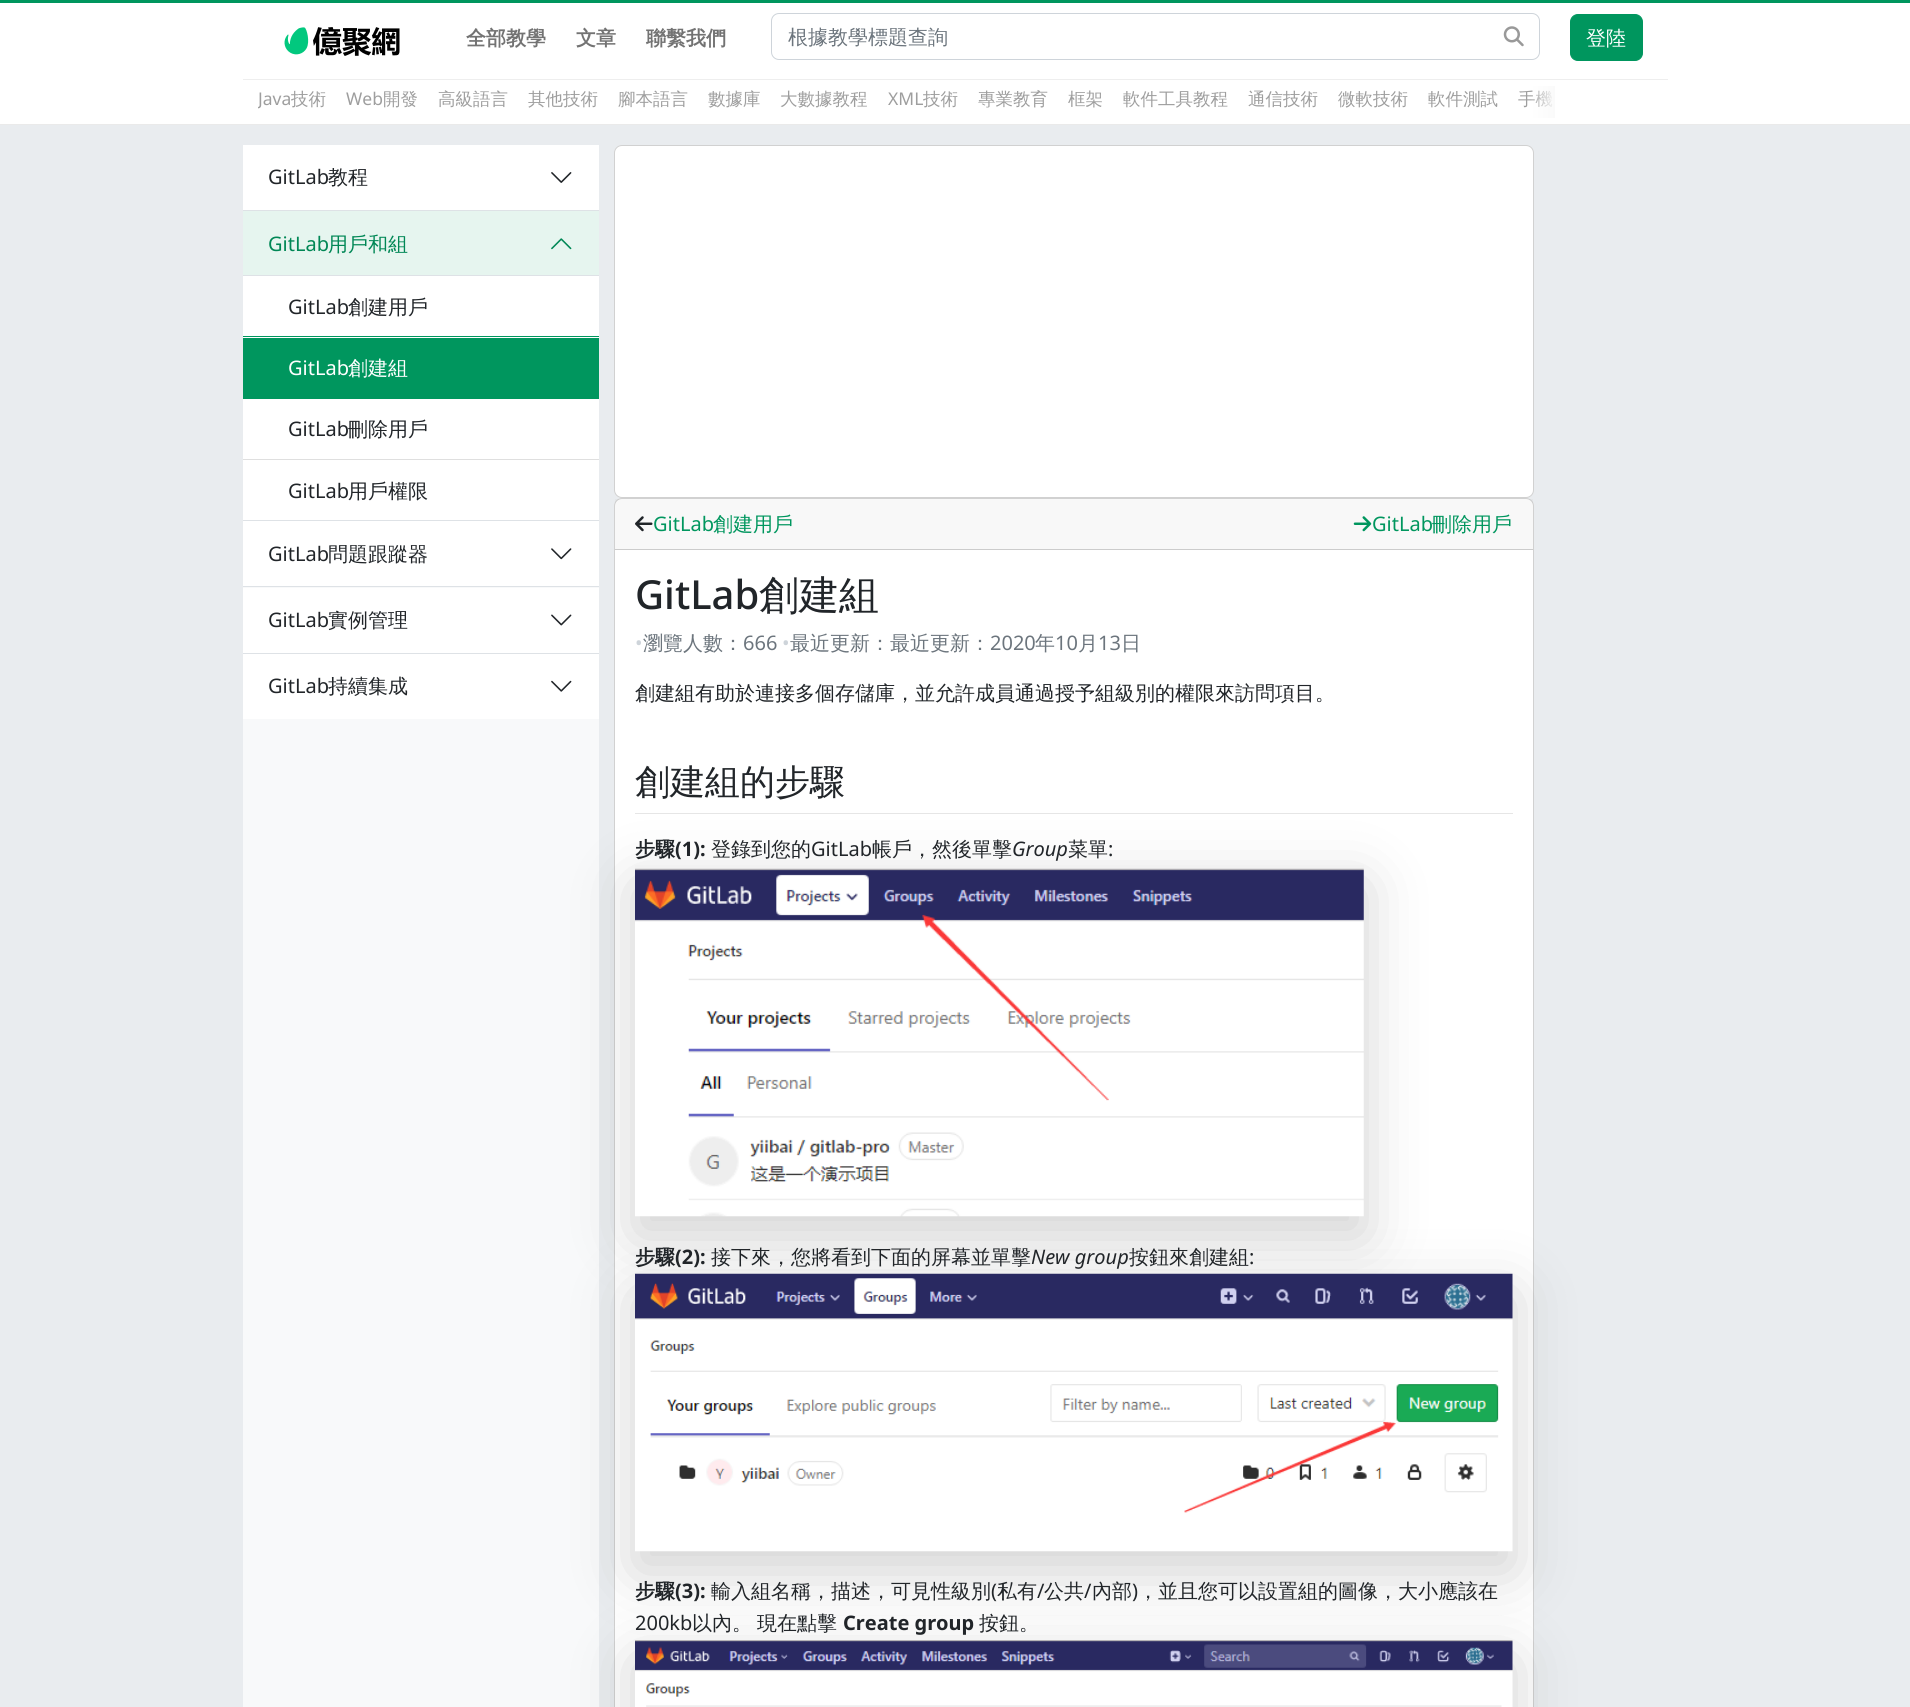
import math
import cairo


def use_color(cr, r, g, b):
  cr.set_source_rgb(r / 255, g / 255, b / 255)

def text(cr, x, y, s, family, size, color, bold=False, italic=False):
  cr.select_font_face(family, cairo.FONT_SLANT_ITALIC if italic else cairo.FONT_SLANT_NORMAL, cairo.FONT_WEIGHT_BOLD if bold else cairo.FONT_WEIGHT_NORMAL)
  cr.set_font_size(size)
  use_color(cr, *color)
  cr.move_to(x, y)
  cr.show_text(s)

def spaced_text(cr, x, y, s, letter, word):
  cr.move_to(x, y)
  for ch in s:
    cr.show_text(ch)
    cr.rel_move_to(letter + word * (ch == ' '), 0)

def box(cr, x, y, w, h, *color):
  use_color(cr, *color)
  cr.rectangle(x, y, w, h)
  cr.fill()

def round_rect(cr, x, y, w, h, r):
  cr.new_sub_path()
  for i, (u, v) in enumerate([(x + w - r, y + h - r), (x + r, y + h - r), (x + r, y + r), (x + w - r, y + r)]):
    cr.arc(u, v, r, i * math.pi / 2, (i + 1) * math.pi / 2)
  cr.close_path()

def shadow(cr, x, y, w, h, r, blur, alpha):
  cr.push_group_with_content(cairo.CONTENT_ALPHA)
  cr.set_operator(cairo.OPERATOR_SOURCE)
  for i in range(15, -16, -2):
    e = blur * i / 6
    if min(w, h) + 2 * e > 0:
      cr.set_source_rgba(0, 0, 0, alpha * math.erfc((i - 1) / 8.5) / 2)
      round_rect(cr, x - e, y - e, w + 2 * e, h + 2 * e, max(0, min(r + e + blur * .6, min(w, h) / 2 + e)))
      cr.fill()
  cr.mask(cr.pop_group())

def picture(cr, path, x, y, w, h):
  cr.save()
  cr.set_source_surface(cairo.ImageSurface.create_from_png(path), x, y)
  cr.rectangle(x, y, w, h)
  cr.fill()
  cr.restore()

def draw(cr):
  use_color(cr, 255, 255, 255)
  cr.paint()
  box(cr, 0, 0, 1910, 3, 0, 150, 94)
  picture(cr, "img_01.png", 284, 27, 116, 29)
  round_rect(cr, 771.5, 13.5, 768, 46, 7.5)
  use_color(cr, 206, 212, 218)
  cr.set_line_width(1)
  cr.stroke()
  picture(cr, "img_02.png", 1503, 26, 21, 21)
  use_color(cr, 0, 150, 94)
  round_rect(cr, 1570.5, 14.5, 72, 46, 7.5)
  cr.fill_preserve()
  cr.stroke()
  box(cr, 0, 124, 1910, 1, 234, 234, 234)
  box(cr, 243, 79, 1425, 1, 238, 238, 238)
  box(cr, 0, 125, 1910, 1582, 233, 236, 239)
  box(cr, 243, 587, 356, 1120, 248, 249, 250)
  box(cr, 243, 210, 356, 1, 222, 226, 230)
  box(cr, 243, 145, 356, 65, 255, 255, 255)
  picture(cr, "img_03.png", 551, 172, 21, 11)
  box(cr, 243, 520, 356, 1, 222, 226, 230)
  box(cr, 243, 211, 356, 64, 230, 245, 239)
  box(cr, 243, 275, 356, 1, 222, 226, 230)
  picture(cr, "img_04.png", 551, 238, 21, 12)
  box(cr, 243, 276, 356, 62, 255, 255, 255)
  box(cr, 243, 338, 356, 61, 0, 150, 94)
  box(cr, 243, 336, 356, 1, 0, 150, 94)
  box(cr, 243, 399, 356, 60, 255, 255, 255)
  box(cr, 243, 459, 356, 1, 223, 223, 223)
  box(cr, 243, 460, 356, 60, 255, 255, 255)
  box(cr, 243, 586, 356, 1, 222, 226, 230)
  box(cr, 243, 521, 356, 65, 255, 255, 255)
  picture(cr, "img_05.png", 551, 548, 21, 12)
  box(cr, 243, 653, 356, 1, 222, 226, 230)
  box(cr, 243, 588, 356, 65, 255, 255, 255)
  picture(cr, "img_06.png", 551, 614, 21, 12)
  box(cr, 243, 654, 356, 65, 255, 255, 255)
  picture(cr, "img_07.png", 551, 680, 21, 12)
  round_rect(cr, 614, 145, 920, 353, 8)
  cr.fill()
  round_rect(cr, 614.5, 145.5, 919, 352, 7.5)
  cr.set_source_rgba(0, 0, 0, 0.18)
  cr.stroke()
  use_color(cr, 255, 255, 255)
  round_rect(cr, 614, 498, 920, 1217, 8)
  cr.fill()
  round_rect(cr, 614.5, 498.5, 919, 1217, 7.5)
  cr.set_source_rgba(0, 0, 0, 0.18)
  cr.stroke()
  cr.set_source_rgba(0, 0, 0, 0.03)
  cr.rectangle(615, 499, 918, 50)
  cr.fill()
  box(cr, 615, 549, 918, 1, 204, 204, 204)
  picture(cr, "img_08.png", 635, 516, 18, 16)
  picture(cr, "img_09.png", 1353, 516, 19, 16)
  box(cr, 635, 813, 878, 1, 230, 230, 230)
  use_color(cr, 0, 0, 0)
  shadow(cr, 635, 885, 729, 351, 0, 30, 0.18)
  picture(cr, "img_10.png", 635, 865, 729, 352)
  shadow(cr, 635, 1294, 878, 277, 0, 30, 0.18)
  picture(cr, "img_11.png", 635, 1273, 878, 279)
  shadow(cr, 635, 1660, 878, 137, 0, 30, 0.18)
  picture(cr, "img_12.png", 635, 1640, 878, 67)
  text(cr, 466, 45, "全部教學", "WenQuanYi Zen Hei", 20, (115, 115, 115), bold=True)
  text(cr, 576, 45, "文章", "WenQuanYi Zen Hei", 20, (115, 115, 115), bold=True)
  text(cr, 646, 45, "聯繫我們", "WenQuanYi Zen Hei", 20, (115, 115, 115), bold=True)
  text(cr, 788, 44, "根據教學標題查詢", "WenQuanYi Zen Hei Medium", 20, (108, 117, 125))
  text(cr, 1586, 45, "登陸", "WenQuanYi Zen Hei Medium", 20, (255, 255, 255))
  cr.save()
  cr.rectangle(258, 80, 1297, 38)
  cr.clip()
  text(cr, 258, 105, "Java", "Noto Sans", 17.5, (158, 158, 158))
  cr.restore()
  text(cr, 291, 105, "技術", "WenQuanYi Zen Hei Medium", 17.5, (158, 158, 158))
  text(cr, 346, 105, "Web", "Noto Sans", 17.5, (158, 158, 158))
  text(cr, 383, 105, "開發", "WenQuanYi Zen Hei Medium", 17.5, (158, 158, 158))
  text(cr, 438, 105, "高級語言", "WenQuanYi Zen Hei Medium", 17.5, (158, 158, 158))
  text(cr, 528, 105, "其他技術", "WenQuanYi Zen Hei Medium", 17.5, (158, 158, 158))
  text(cr, 618, 105, "腳本語言", "WenQuanYi Zen Hei Medium", 17.5, (158, 158, 158))
  text(cr, 708, 105, "數據庫", "WenQuanYi Zen Hei Medium", 17.5, (158, 158, 158))
  text(cr, 780, 105, "大數據教程", "WenQuanYi Zen Hei Medium", 17.5, (158, 158, 158))
  text(cr, 888, 105, "XML", "Noto Sans", 17.5, (158, 158, 158))
  text(cr, 923, 105, "技術", "WenQuanYi Zen Hei Medium", 17.5, (158, 158, 158))
  text(cr, 978, 105, "專業教育", "WenQuanYi Zen Hei Medium", 17.5, (158, 158, 158))
  text(cr, 1068, 105, "框架", "WenQuanYi Zen Hei Medium", 17.5, (158, 158, 158))
  text(cr, 1123, 105, "軟件工具教程", "WenQuanYi Zen Hei Medium", 17.5, (158, 158, 158))
  text(cr, 1248, 105, "通信技術", "WenQuanYi Zen Hei Medium", 17.5, (158, 158, 158))
  text(cr, 1338, 105, "微軟技術", "WenQuanYi Zen Hei Medium", 17.5, (158, 158, 158))
  text(cr, 1428, 105, "軟件測試", "WenQuanYi Zen Hei Medium", 17.5, (158, 158, 158))
  text(cr, 1518, 105, "手機", "WenQuanYi Zen Hei Medium", 17.5, (158, 158, 158))
  gradient = cairo.LinearGradient(1530, 105, 1555, 105)
  gradient.add_color_stop_rgba(0, 0.98, 0.98, 0.98, 0)
  gradient.add_color_stop_rgba(1, 0.98, 0.98, 0.98, 1)
  cr.set_source(gradient)
  cr.rectangle(1531, 86, 24, 32)
  cr.fill()
  text(cr, 268, 184, "GitLab", "Noto Sans", 20, (33, 37, 41))
  text(cr, 328, 184, "教程", "WenQuanYi Zen Hei Medium", 20, (33, 37, 41))
  text(cr, 268, 251, "GitLab", "Noto Sans", 20, (0, 135, 85))
  text(cr, 328, 251, "用戶和組", "WenQuanYi Zen Hei Medium", 20, (0, 135, 85))
  text(cr, 288, 314, "GitLab", "Noto Sans", 20, (33, 37, 41))
  text(cr, 348, 314, "創建用戶", "WenQuanYi Zen Hei Medium", 20, (33, 37, 41))
  text(cr, 288, 375, "GitLab", "Noto Sans", 20, (255, 255, 255))
  text(cr, 348, 375, "創建組", "WenQuanYi Zen Hei Medium", 20, (255, 255, 255))
  text(cr, 288, 436, "GitLab", "Noto Sans", 20, (33, 37, 41))
  text(cr, 348, 436, "刪除用戶", "WenQuanYi Zen Hei Medium", 20, (33, 37, 41))
  text(cr, 288, 498, "GitLab", "Noto Sans", 20, (33, 37, 41))
  text(cr, 348, 498, "用戶權限", "WenQuanYi Zen Hei Medium", 20, (33, 37, 41))
  text(cr, 268, 561, "GitLab", "Noto Sans", 20, (33, 37, 41))
  text(cr, 328, 561, "問題跟蹤器", "WenQuanYi Zen Hei Medium", 20, (33, 37, 41))
  text(cr, 268, 627, "GitLab", "Noto Sans", 20, (33, 37, 41))
  text(cr, 328, 627, "實例管理", "WenQuanYi Zen Hei Medium", 20, (33, 37, 41))
  text(cr, 268, 693, "GitLab", "Noto Sans", 20, (33, 37, 41))
  text(cr, 328, 693, "持續集成", "WenQuanYi Zen Hei Medium", 20, (33, 37, 41))
  text(cr, 653, 531, "GitLab", "Noto Sans", 20, (0, 150, 94))
  text(cr, 713, 531, "創建用戶", "WenQuanYi Zen Hei Medium", 20, (0, 150, 94))
  text(cr, 1372, 531, "GitLab", "Noto Sans", 20, (0, 150, 94))
  text(cr, 1432, 531, "刪除用戶", "WenQuanYi Zen Hei Medium", 20, (0, 150, 94))
  text(cr, 635, 609, "GitLab", "Noto Sans Medium", 40, (33, 37, 41))
  text(cr, 759, 609, "創建組", "WenQuanYi Zen Hei Medium", 40, (33, 37, 41))
  text(cr, 635, 650, "•", "Noto Sans", 20, (206, 212, 218))
  text(cr, 643, 650, "瀏覽人數：", "WenQuanYi Zen Hei Medium", 20, (108, 117, 125))
  text(cr, 743, 650, "666", "Noto Sans", 20, (108, 117, 125))
  text(cr, 782, 650, "•", "Noto Sans", 20, (206, 212, 218))
  text(cr, 790, 650, "最近更新：最近更新：", "WenQuanYi Zen Hei Medium", 20, (108, 117, 125))
  text(cr, 990, 650, "2020", "Noto Sans", 20, (108, 117, 125))
  text(cr, 1035, 650, "年", "WenQuanYi Zen Hei Medium", 20, (108, 117, 125))
  text(cr, 1055, 650, "10", "Noto Sans", 20, (108, 117, 125))
  text(cr, 1078, 650, "月", "WenQuanYi Zen Hei Medium", 20, (108, 117, 125))
  text(cr, 1098, 650, "13", "Noto Sans", 20, (108, 117, 125))
  text(cr, 1121, 650, "日", "WenQuanYi Zen Hei Medium", 20, (108, 117, 125))
  text(cr, 635, 700, "創建組有助於連接多個存儲庫，並允許成員通過授予組級別的權限來訪問項目。", "WenQuanYi Zen Hei Medium", 20, (33, 37, 41))
  text(cr, 635, 794, "創建組的步驟", "WenQuanYi Zen Hei Medium", 35, (33, 37, 41))
  text(cr, 635, 856, "步驟", "WenQuanYi Zen Hei", 20, (33, 37, 41), bold=True)
  text(cr, 675, 856, "(1):", "Noto Sans", 20, (33, 37, 41), bold=True)
  text(cr, 711, 856, "登錄到您的", "WenQuanYi Zen Hei Medium", 20, (33, 37, 41))
  text(cr, 811, 856, "GitLab", "Noto Sans", 20, (33, 37, 41))
  text(cr, 872, 856, "帳戶，然後單擊", "WenQuanYi Zen Hei Medium", 20, (33, 37, 41))
  text(cr, 1012, 856, "Group", "Noto Sans", 20, (33, 37, 41), italic=True)
  text(cr, 1068, 856, "菜單", "WenQuanYi Zen Hei Medium", 20, (33, 37, 41))
  text(cr, 1108, 856, ":", "Noto Sans", 20, (33, 37, 41))
  text(cr, 635, 1264, "步驟", "WenQuanYi Zen Hei", 20, (33, 37, 41), bold=True)
  text(cr, 675, 1264, "(2):", "Noto Sans", 20, (33, 37, 41), bold=True)
  text(cr, 711, 1264, "接下來，您將看到下面的屏幕並單擊", "WenQuanYi Zen Hei Medium", 20, (33, 37, 41))
  text(cr, 1031, 1264, "New group", "Noto Sans", 20, (33, 37, 41), italic=True)
  text(cr, 1129, 1264, "按鈕來創建組", "WenQuanYi Zen Hei Medium", 20, (33, 37, 41))
  text(cr, 1249, 1264, ":", "Noto Sans", 20, (33, 37, 41))
  text(cr, 635, 1598, "步驟", "WenQuanYi Zen Hei", 20, (33, 37, 41), bold=True)
  text(cr, 675, 1598, "(3):", "Noto Sans", 20, (33, 37, 41), bold=True)
  text(cr, 711, 1598, "輸入組名稱，描述，可見性級別 私有", "WenQuanYi Zen Hei Medium", 20, (33, 37, 41))
  text(cr, 1092, 1598, "內部 ，並且您可以設置組的圖像，大小應該在", "WenQuanYi Zen Hei Medium", 20, (33, 37, 41))
  text(cr, 991, 1598, "(", "Noto Sans", 20, (33, 37, 41))
  text(cr, 1037, 1598, "/", "Noto Sans", 20, (33, 37, 41))
  text(cr, 1044, 1598, "公共", "WenQuanYi Zen Hei Medium", 20, (33, 37, 41))
  text(cr, 1084, 1598, "/", "Noto Sans", 20, (33, 37, 41))
  text(cr, 1132, 1598, ")", "Noto Sans", 20, (33, 37, 41))
  text(cr, 635, 1630, "200kb", "Noto Sans", 20, (33, 37, 41))
  cr.select_font_face("WenQuanYi Zen Hei Medium")
  spaced_text(cr, 692, 1630, "以內。 現在點擊", 0, -1)
  text(cr, 843, 1630, "Create group", "Noto Sans", 20, (33, 37, 41), bold=True)
  text(cr, 979, 1630, "按鈕。", "WenQuanYi Zen Hei Medium", 20, (33, 37, 41))


surface = cairo.ImageSurface(cairo.FORMAT_RGB24, 1910, 1707)
cr = cairo.Context(surface)
options = cairo.FontOptions()
options.set_hint_metrics(cairo.HINT_METRICS_OFF)
options.set_hint_style(cairo.HINT_STYLE_NONE)
cr.set_font_options(options)
cr.set_miter_limit(4)
draw(cr)
surface.write_to_png("out.png")
